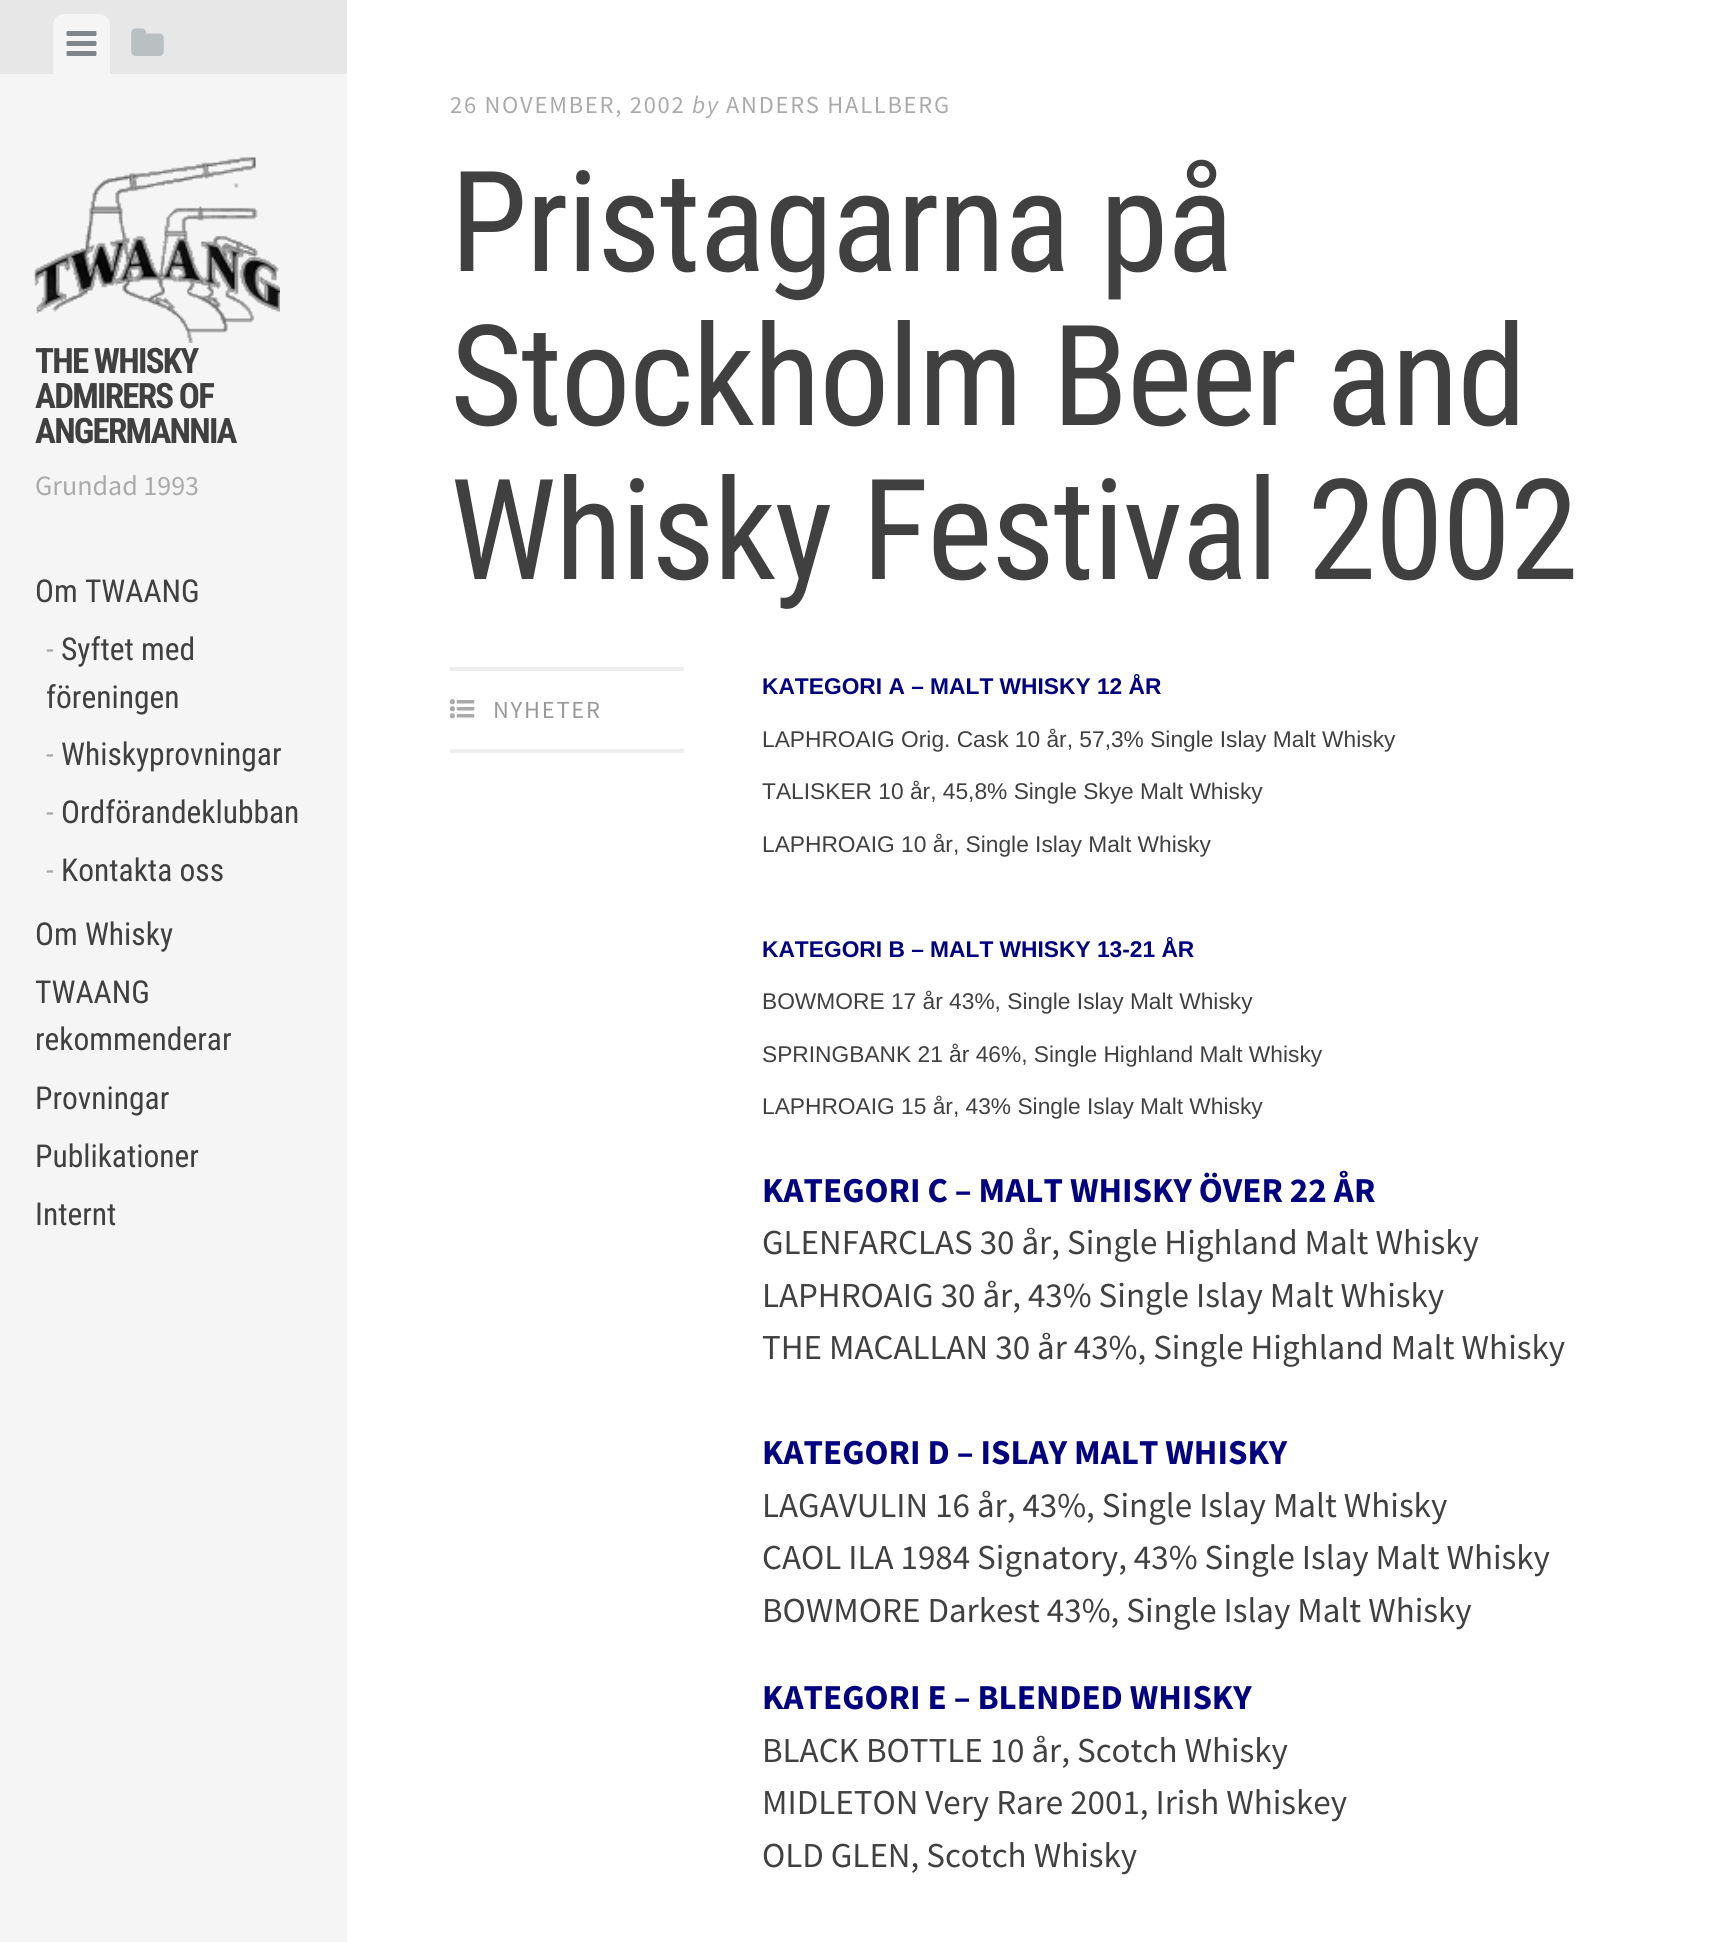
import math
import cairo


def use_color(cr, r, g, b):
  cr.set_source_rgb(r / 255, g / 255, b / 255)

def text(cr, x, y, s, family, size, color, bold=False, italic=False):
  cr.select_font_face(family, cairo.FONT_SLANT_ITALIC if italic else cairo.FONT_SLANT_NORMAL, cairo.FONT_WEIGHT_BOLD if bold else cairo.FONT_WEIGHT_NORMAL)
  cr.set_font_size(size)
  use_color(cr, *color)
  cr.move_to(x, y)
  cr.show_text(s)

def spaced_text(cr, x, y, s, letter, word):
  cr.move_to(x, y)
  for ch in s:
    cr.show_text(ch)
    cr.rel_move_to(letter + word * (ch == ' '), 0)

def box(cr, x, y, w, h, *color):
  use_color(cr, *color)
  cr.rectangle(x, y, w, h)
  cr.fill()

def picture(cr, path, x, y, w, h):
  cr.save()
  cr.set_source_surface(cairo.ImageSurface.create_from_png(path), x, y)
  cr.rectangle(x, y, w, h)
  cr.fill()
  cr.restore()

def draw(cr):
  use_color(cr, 255, 255, 255)
  cr.paint()
  box(cr, 0, 74, 347, 1868, 245, 245, 245)
  box(cr, 0, 0, 347, 74, 231, 231, 231)
  use_color(cr, 245, 245, 245)
  cr.new_path()
  cr.move_to(64, 14)
  cr.line_to(99, 14)
  cr.curve_to(105, 14, 110, 19, 110, 25)
  cr.line_to(110, 74)
  cr.line_to(53, 74)
  cr.line_to(53, 25)
  cr.curve_to(53, 19, 58, 14, 64, 14)
  cr.close_path()
  cr.fill()
  picture(cr, "img_01.png", 66, 31, 31, 25)
  picture(cr, "img_02.png", 131, 28, 33, 28)
  picture(cr, "img_03.png", 34, 157, 246, 186)
  box(cr, 450, 667, 234, 4, 238, 238, 238)
  box(cr, 450, 749, 234, 4, 238, 238, 238)
  picture(cr, "img_04.png", 449, 699, 26, 20)
  cr.select_font_face("Roboto Condensed", cairo.FONT_SLANT_NORMAL, cairo.FONT_WEIGHT_BOLD)
  cr.set_font_size(35)
  use_color(cr, 64, 64, 64)
  spaced_text(cr, 35, 373, "THE WHISKY", -1.75, 0)
  spaced_text(cr, 35, 408, "ADMIRERS OF", -1.75, 0)
  spaced_text(cr, 35, 443, "ANGERMANNIA", -1.75, 0)
  text(cr, 35, 495, "Grundad 1993", "Source Sans Pro", 28, (170, 170, 170))
  text(cr, 35, 602, "Om TWAANG", "Roboto Condensed", 31.5, (64, 64, 64))
  text(cr, 46, 660, "-", "Roboto Condensed", 31.5, (170, 170, 170))
  text(cr, 61, 660, "Syftet med", "Roboto Condensed", 31.5, (64, 64, 64))
  text(cr, 46, 708, "föreningen", "Roboto Condensed", 31.5, (64, 64, 64))
  text(cr, 46, 765, "-", "Roboto Condensed", 31.5, (170, 170, 170))
  text(cr, 61, 765, "Whiskyprovningar", "Roboto Condensed", 31.5, (64, 64, 64))
  text(cr, 46, 823, "-", "Roboto Condensed", 31.5, (170, 170, 170))
  text(cr, 61, 823, "Ordförandeklubban", "Roboto Condensed", 31.5, (64, 64, 64))
  text(cr, 46, 881, "-", "Roboto Condensed", 31.5, (170, 170, 170))
  text(cr, 61, 881, "Kontakta oss", "Roboto Condensed", 31.5, (64, 64, 64))
  text(cr, 35, 945, "Om Whisky", "Roboto Condensed", 31.5, (64, 64, 64))
  text(cr, 35, 1003, "TWAANG", "Roboto Condensed", 31.5, (64, 64, 64))
  text(cr, 35, 1050, "rekommenderar", "Roboto Condensed", 31.5, (64, 64, 64))
  text(cr, 35, 1109, "Provningar", "Roboto Condensed", 31.5, (64, 64, 64))
  text(cr, 35, 1167, "Publikationer", "Roboto Condensed", 31.5, (64, 64, 64))
  text(cr, 35, 1225, "Internt", "Roboto Condensed", 31.5, (64, 64, 64))
  cr.select_font_face("Source Sans Pro")
  cr.set_font_size(24.5)
  use_color(cr, 170, 170, 170)
  spaced_text(cr, 450, 113, "26 NOVEMBER, 2002", 1.75, 0)
  cr.select_font_face("Source Sans Pro", cairo.FONT_SLANT_ITALIC)
  spaced_text(cr, 692, 113, "by", 1.75, 0)
  cr.select_font_face("Source Sans Pro")
  spaced_text(cr, 726, 113, "ANDERS HALLBERG", 1.75, 0)
  cr.select_font_face("Roboto Condensed")
  cr.set_font_size(140)
  use_color(cr, 64, 64, 64)
  spaced_text(cr, 450, 271, "Pristagarna på", -1.75, 0)
  spaced_text(cr, 450, 425, "Stockholm Beer and", -1.75, 0)
  spaced_text(cr, 450, 579, "Whisky Festival 2002", -1.75, 0)
  cr.select_font_face("Source Sans Pro")
  cr.set_font_size(24.5)
  use_color(cr, 153, 153, 153)
  spaced_text(cr, 493, 718, "NYHETER", 1.75, 0)
  text(cr, 762, 694, "KATEGORI A – MALT WHISKY 12 ÅR", "Liberation Sans", 22.75, (0, 0, 128), bold=True)
  text(cr, 762, 747, "LAPHROAIG Orig. Cask 10 år, 57,3% Single Islay Malt Whisky", "Liberation Sans", 22.75, (64, 64, 64))
  text(cr, 762, 799, "TALISKER 10 år, 45,8% Single Skye Malt Whisky", "Liberation Sans", 22.75, (64, 64, 64))
  text(cr, 762, 852, "LAPHROAIG 10 år, Single Islay Malt Whisky", "Liberation Sans", 22.75, (64, 64, 64))
  text(cr, 762, 957, "KATEGORI B – MALT WHISKY 13-21 ÅR", "Liberation Sans", 22.75, (0, 0, 128), bold=True)
  text(cr, 762, 1009, "BOWMORE 17 år 43%, Single Islay Malt Whisky", "Liberation Sans", 22.75, (64, 64, 64))
  text(cr, 762, 1062, "SPRINGBANK 21 år 46%, Single Highland Malt Whisky", "Liberation Sans", 22.75, (64, 64, 64))
  text(cr, 762, 1114, "LAPHROAIG 15 år, 43% Single Islay Malt Whisky", "Liberation Sans", 22.75, (64, 64, 64))
  text(cr, 762, 1202, "KATEGORI C – MALT WHISKY ÖVER 22 ÅR", "Source Sans Pro", 35, (0, 0, 128), bold=True)
  text(cr, 762, 1254, "GLENFARCLAS 30 år, Single Highland Malt Whisky", "Source Sans Pro", 35, (64, 64, 64))
  text(cr, 762, 1307, "LAPHROAIG 30 år, 43% Single Islay Malt Whisky", "Source Sans Pro", 35, (64, 64, 64))
  text(cr, 762, 1359, "THE MACALLAN 30 år 43%, Single Highland Malt Whisky", "Source Sans Pro", 35, (64, 64, 64))
  text(cr, 762, 1464, "KATEGORI D – ISLAY MALT WHISKY", "Source Sans Pro", 35, (0, 0, 128), bold=True)
  text(cr, 762, 1517, "LAGAVULIN 16 år, 43%, Single Islay Malt Whisky", "Source Sans Pro", 35, (64, 64, 64))
  text(cr, 762, 1569, "CAOL ILA 1984 Signatory, 43% Single Islay Malt Whisky", "Source Sans Pro", 35, (64, 64, 64))
  text(cr, 762, 1622, "BOWMORE Darkest 43%, Single Islay Malt Whisky", "Source Sans Pro", 35, (64, 64, 64))
  text(cr, 762, 1709, "KATEGORI E – BLENDED WHISKY", "Source Sans Pro", 35, (0, 0, 128), bold=True)
  text(cr, 762, 1762, "BLACK BOTTLE 10 år, Scotch Whisky", "Source Sans Pro", 35, (64, 64, 64))
  text(cr, 762, 1814, "MIDLETON Very Rare 2001, Irish Whiskey", "Source Sans Pro", 35, (64, 64, 64))
  text(cr, 762, 1867, "OLD GLEN, Scotch Whisky", "Source Sans Pro", 35, (64, 64, 64))


surface = cairo.ImageSurface(cairo.FORMAT_RGB24, 1728, 1942)
cr = cairo.Context(surface)
options = cairo.FontOptions()
options.set_hint_metrics(cairo.HINT_METRICS_OFF)
options.set_hint_style(cairo.HINT_STYLE_NONE)
cr.set_font_options(options)
cr.set_miter_limit(4)
draw(cr)
surface.write_to_png("out.png")
